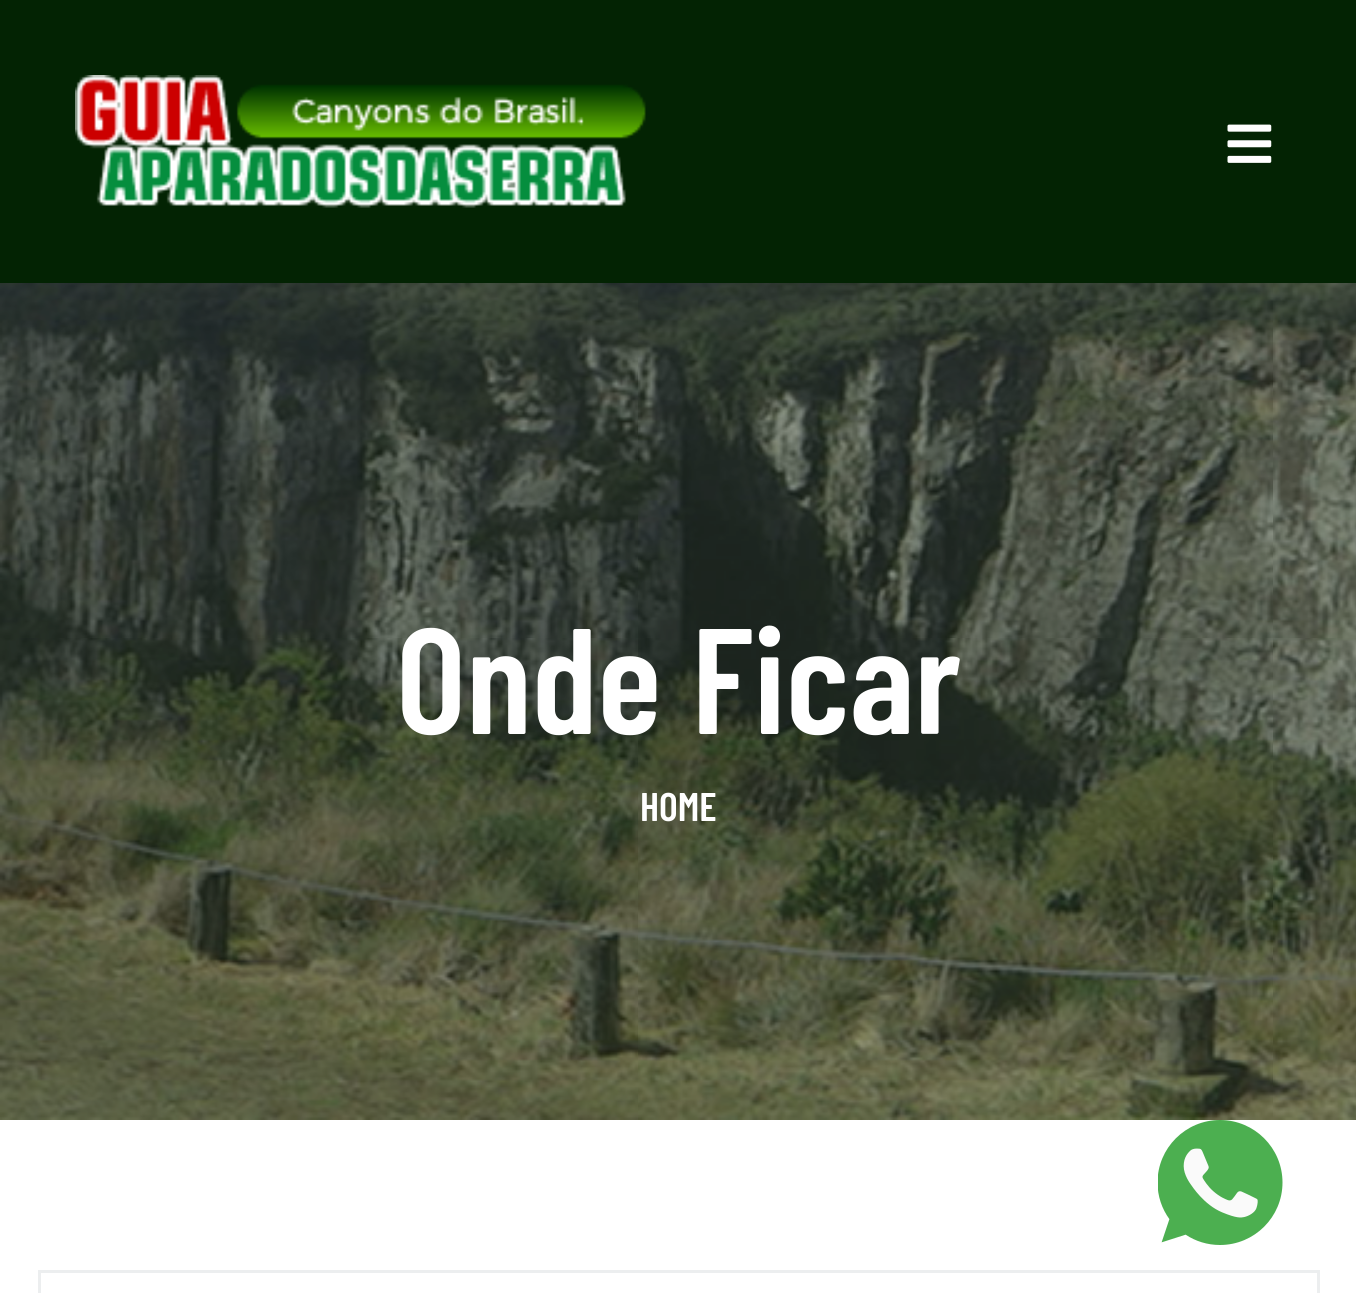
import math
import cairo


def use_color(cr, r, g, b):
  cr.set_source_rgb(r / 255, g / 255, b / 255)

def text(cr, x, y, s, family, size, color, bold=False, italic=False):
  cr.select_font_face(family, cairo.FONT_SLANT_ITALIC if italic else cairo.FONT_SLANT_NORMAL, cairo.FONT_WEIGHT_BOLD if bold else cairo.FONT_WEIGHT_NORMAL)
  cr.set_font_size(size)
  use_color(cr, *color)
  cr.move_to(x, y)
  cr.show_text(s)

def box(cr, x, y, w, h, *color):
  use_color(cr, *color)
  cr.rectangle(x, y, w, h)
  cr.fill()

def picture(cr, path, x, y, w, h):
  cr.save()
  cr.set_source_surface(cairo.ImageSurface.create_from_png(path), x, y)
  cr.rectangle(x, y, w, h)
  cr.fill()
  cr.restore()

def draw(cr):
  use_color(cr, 255, 255, 255)
  cr.paint()
  box(cr, 0, 0, 1356, 283, 3, 35, 3)
  picture(cr, "img_01.png", 75, 75, 571, 133)
  picture(cr, "img_02.png", 1227, 124, 45, 39)
  picture(cr, "img_03.png", 0, 283, 1356, 837)
  cr.rectangle(39.5, 1271.5, 1279, 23)
  use_color(cr, 236, 238, 239)
  cr.set_line_width(3)
  cr.stroke()
  picture(cr, "img_04.png", 1158, 1120, 125, 125)
  text(cr, 396, 734, "Onde Ficar", "Barlow Condensed SemiBold", 150, (255, 255, 255))
  text(cr, 640, 821, "HOME", "Barlow Condensed SemiBold", 40, (255, 255, 255))


surface = cairo.ImageSurface(cairo.FORMAT_RGB24, 1356, 1293)
cr = cairo.Context(surface)
options = cairo.FontOptions()
options.set_hint_metrics(cairo.HINT_METRICS_OFF)
options.set_hint_style(cairo.HINT_STYLE_NONE)
cr.set_font_options(options)
cr.set_miter_limit(4)
draw(cr)
surface.write_to_png("out.png")
